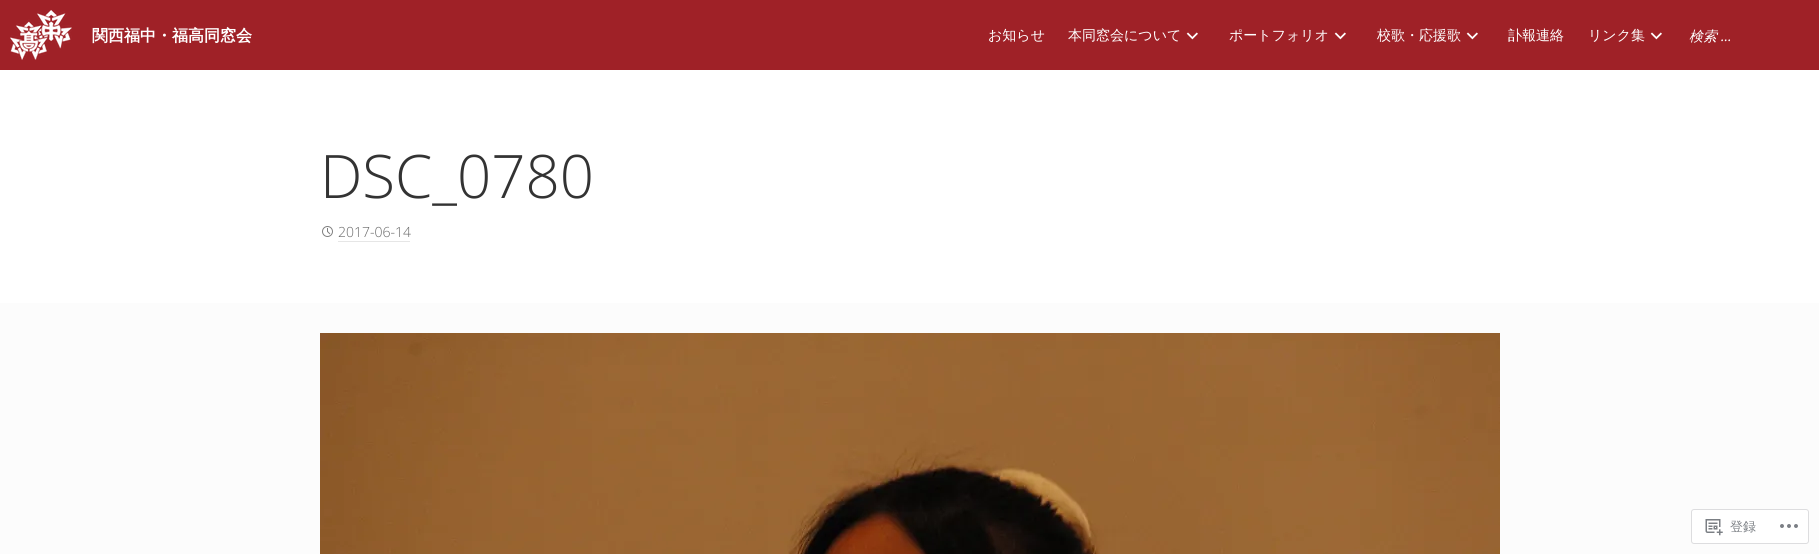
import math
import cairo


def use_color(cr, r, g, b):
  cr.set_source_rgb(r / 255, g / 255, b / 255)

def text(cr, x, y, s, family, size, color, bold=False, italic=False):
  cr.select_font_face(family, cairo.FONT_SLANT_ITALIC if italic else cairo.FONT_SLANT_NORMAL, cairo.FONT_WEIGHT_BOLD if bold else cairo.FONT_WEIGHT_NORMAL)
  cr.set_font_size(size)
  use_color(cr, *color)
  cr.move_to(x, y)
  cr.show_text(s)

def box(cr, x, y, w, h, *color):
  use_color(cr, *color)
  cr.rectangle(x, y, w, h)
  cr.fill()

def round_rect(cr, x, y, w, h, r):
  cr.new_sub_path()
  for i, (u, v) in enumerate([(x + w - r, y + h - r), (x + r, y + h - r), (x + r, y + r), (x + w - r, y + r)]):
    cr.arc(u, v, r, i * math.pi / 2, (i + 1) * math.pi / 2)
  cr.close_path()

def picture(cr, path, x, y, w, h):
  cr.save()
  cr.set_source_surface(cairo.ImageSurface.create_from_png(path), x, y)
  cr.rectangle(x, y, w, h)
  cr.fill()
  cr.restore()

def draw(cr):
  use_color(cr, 252, 252, 252)
  cr.paint()
  box(cr, 0, 0, 1819, 70, 159, 33, 39)
  picture(cr, "img_01.png", 10, 10, 62, 50)
  picture(cr, "img_02.png", 1186, 32, 12, 8)
  picture(cr, "img_02.png", 1334, 32, 12, 8)
  picture(cr, "img_02.png", 1466, 32, 12, 8)
  picture(cr, "img_02.png", 1650, 32, 12, 8)
  box(cr, 0, 70, 1819, 233, 255, 255, 255)
  picture(cr, "img_03.png", 322, 226, 11, 11)
  box(cr, 338, 241, 72, 1, 230, 230, 230)
  picture(cr, "img_04.png", 320, 333, 1180, 221)
  use_color(cr, 255, 255, 255)
  round_rect(cr, 1691.5, 509.5, 117, 34, 2.5)
  cr.fill_preserve()
  use_color(cr, 221, 221, 223)
  cr.set_line_width(1)
  cr.stroke()
  picture(cr, "img_05.png", 1705, 519, 18, 17)
  picture(cr, "img_06.png", 1780, 524, 18, 4)
  text(cr, 92, 41, "関西福中・福高同窓会", "WenQuanYi Zen Hei", 16, (255, 255, 255), bold=True)
  text(cr, 988, 40, "お知らせ", "WenQuanYi Zen Hei Medium", 14, (255, 255, 255))
  text(cr, 1068, 40, "本同窓会について", "WenQuanYi Zen Hei Medium", 14, (255, 255, 255))
  text(cr, 1229, 40, "ポートフォリオ", "WenQuanYi Zen Hei Medium", 14, (255, 255, 255))
  text(cr, 1377, 40, "校歌・応援歌", "WenQuanYi Zen Hei Medium", 14, (255, 255, 255))
  text(cr, 1508, 40, "訃報連絡", "WenQuanYi Zen Hei Medium", 14, (255, 255, 255))
  text(cr, 1588, 40, "リンク集", "WenQuanYi Zen Hei Medium", 14, (255, 255, 255))
  text(cr, 1689, 41, "検索", "WenQuanYi Zen Hei Medium", 14, (255, 255, 255), italic=True)
  text(cr, 1721, 41, "…", "Open Sans", 14, (255, 255, 255), italic=True)
  text(cr, 320, 198, "DSC_0780", "Open Sans Light", 60, (51, 51, 51))
  text(cr, 338, 237, "2017-06-14", "Open Sans Light", 14, (102, 102, 102))
  text(cr, 1730, 531, "登録", "WenQuanYi Zen Hei Medium", 13, (123, 127, 132))


surface = cairo.ImageSurface(cairo.FORMAT_RGB24, 1819, 554)
cr = cairo.Context(surface)
options = cairo.FontOptions()
options.set_hint_metrics(cairo.HINT_METRICS_OFF)
options.set_hint_style(cairo.HINT_STYLE_NONE)
cr.set_font_options(options)
cr.set_miter_limit(4)
draw(cr)
surface.write_to_png("out.png")
